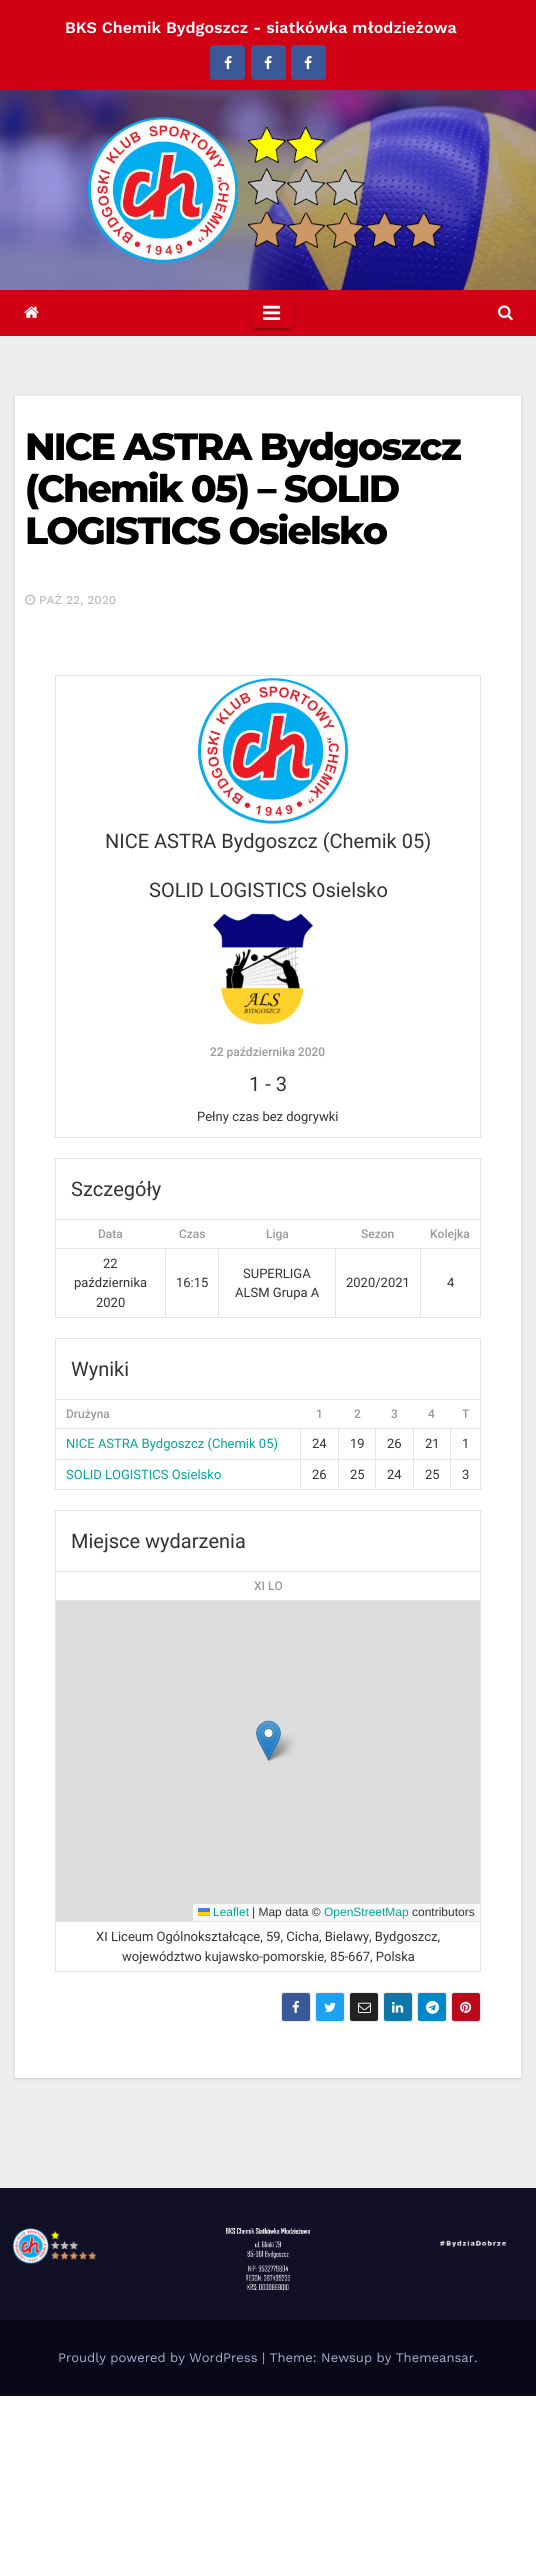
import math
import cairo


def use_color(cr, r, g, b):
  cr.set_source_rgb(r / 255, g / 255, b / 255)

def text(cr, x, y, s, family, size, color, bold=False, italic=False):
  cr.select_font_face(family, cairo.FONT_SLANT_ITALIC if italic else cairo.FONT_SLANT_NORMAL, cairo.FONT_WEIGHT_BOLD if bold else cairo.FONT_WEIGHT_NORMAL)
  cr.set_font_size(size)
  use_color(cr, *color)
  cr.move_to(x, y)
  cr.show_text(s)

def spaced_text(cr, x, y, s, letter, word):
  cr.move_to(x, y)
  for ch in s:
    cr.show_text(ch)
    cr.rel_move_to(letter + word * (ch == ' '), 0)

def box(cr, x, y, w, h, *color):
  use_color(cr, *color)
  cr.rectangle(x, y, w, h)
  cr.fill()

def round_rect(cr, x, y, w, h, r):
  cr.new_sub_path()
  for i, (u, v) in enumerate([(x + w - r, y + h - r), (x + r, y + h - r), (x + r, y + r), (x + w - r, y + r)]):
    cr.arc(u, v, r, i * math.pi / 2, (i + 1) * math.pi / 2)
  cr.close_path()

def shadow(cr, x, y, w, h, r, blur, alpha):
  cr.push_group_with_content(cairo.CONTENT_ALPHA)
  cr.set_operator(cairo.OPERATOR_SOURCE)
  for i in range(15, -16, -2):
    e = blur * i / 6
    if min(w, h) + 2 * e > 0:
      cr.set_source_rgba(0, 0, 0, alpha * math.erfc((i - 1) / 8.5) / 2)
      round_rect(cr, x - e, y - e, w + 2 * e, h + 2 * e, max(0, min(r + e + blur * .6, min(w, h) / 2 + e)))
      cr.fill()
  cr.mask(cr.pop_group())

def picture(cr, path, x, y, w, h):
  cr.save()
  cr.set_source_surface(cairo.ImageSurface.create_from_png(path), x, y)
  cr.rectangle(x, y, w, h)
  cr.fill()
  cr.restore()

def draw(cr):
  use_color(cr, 255, 255, 255)
  cr.paint()
  box(cr, 0, 336, 536, 1852, 238, 238, 238)
  box(cr, 0, 0, 536, 90, 209, 0, 20)
  use_color(cr, 59, 89, 152)
  round_rect(cr, 210, 45, 35, 35, 3)
  cr.fill()
  picture(cr, "img_01.png", 224, 56, 8, 13)
  round_rect(cr, 251, 45, 35, 35, 3)
  cr.fill()
  picture(cr, "img_01.png", 264, 56, 8, 13)
  round_rect(cr, 291, 45, 35, 35, 3)
  cr.fill()
  picture(cr, "img_01.png", 304, 56, 8, 13)
  picture(cr, "img_02.png", 0, 90, 536, 200)
  picture(cr, "img_03.png", 88, 117, 355, 146)
  box(cr, 0, 290, 536, 46, 209, 0, 20)
  picture(cr, "img_04.png", 24, 306, 15, 12)
  cr.save()
  cr.set_fill_rule(cairo.FILL_RULE_EVEN_ODD)
  cr.new_path()
  cr.move_to(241, 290)
  cr.line_to(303, 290)
  cr.line_to(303, 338)
  cr.line_to(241, 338)
  cr.close_path()
  cr.move_to(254, 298)
  cr.line_to(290, 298)
  cr.curve_to(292, 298, 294, 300, 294, 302)
  cr.line_to(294, 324)
  cr.curve_to(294, 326, 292, 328, 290, 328)
  cr.line_to(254, 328)
  cr.curve_to(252, 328, 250, 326, 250, 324)
  cr.line_to(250, 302)
  cr.curve_to(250, 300, 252, 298, 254, 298)
  cr.close_path()
  cr.clip()
  use_color(cr, 0, 0, 0)
  shadow(cr, 250, 299, 44, 30, 4, 2.5, 0.12)
  cr.restore()
  cr.save()
  cr.set_fill_rule(cairo.FILL_RULE_EVEN_ODD)
  cr.new_path()
  cr.move_to(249, 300)
  cr.line_to(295, 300)
  cr.line_to(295, 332)
  cr.line_to(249, 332)
  cr.close_path()
  cr.move_to(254, 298)
  cr.line_to(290, 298)
  cr.curve_to(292, 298, 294, 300, 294, 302)
  cr.line_to(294, 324)
  cr.curve_to(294, 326, 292, 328, 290, 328)
  cr.line_to(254, 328)
  cr.curve_to(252, 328, 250, 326, 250, 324)
  cr.line_to(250, 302)
  cr.curve_to(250, 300, 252, 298, 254, 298)
  cr.close_path()
  cr.clip()
  use_color(cr, 0, 0, 0)
  shadow(cr, 252, 303, 40, 26, 2, 0.5, 0.2)
  cr.restore()
  cr.save()
  cr.set_fill_rule(cairo.FILL_RULE_EVEN_ODD)
  cr.new_path()
  cr.move_to(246, 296)
  cr.line_to(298, 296)
  cr.line_to(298, 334)
  cr.line_to(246, 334)
  cr.close_path()
  cr.move_to(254, 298)
  cr.line_to(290, 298)
  cr.curve_to(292, 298, 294, 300, 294, 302)
  cr.line_to(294, 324)
  cr.curve_to(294, 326, 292, 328, 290, 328)
  cr.line_to(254, 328)
  cr.curve_to(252, 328, 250, 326, 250, 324)
  cr.line_to(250, 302)
  cr.curve_to(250, 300, 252, 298, 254, 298)
  cr.close_path()
  cr.clip()
  use_color(cr, 0, 0, 0)
  shadow(cr, 250, 300, 44, 30, 4, 1, 0.14)
  cr.restore()
  picture(cr, "img_05.png", 263, 305, 18, 15)
  picture(cr, "img_06.png", 498, 305, 15, 16)
  use_color(cr, 0, 0, 0)
  shadow(cr, 15, 397, 506, 1682, 0, 1.5, 0.15)
  box(cr, 15, 396, 506, 1682, 255, 255, 255)
  picture(cr, "img_07.png", 25, 594, 11, 11)
  box(cr, 55, 675, 426, 1, 229, 229, 229)
  box(cr, 480, 675, 1, 463, 229, 229, 229)
  box(cr, 55, 1137, 426, 1, 229, 229, 229)
  box(cr, 55, 675, 1, 463, 229, 229, 229)
  picture(cr, "img_08.png", 198, 678, 150, 146)
  picture(cr, "img_09.png", 213, 913, 101, 112)
  box(cr, 55, 1158, 426, 1, 229, 229, 229)
  box(cr, 480, 1158, 1, 61, 229, 229, 229)
  box(cr, 55, 1158, 1, 61, 229, 229, 229)
  box(cr, 55, 1219, 426, 1, 229, 229, 229)
  box(cr, 480, 1219, 1, 99, 229, 229, 229)
  box(cr, 55, 1317, 426, 1, 229, 229, 229)
  box(cr, 55, 1219, 1, 99, 229, 229, 229)
  box(cr, 420, 1248, 61, 1, 229, 229, 229)
  box(cr, 420, 1248, 1, 70, 229, 229, 229)
  box(cr, 335, 1248, 86, 1, 229, 229, 229)
  box(cr, 335, 1248, 1, 70, 229, 229, 229)
  box(cr, 218, 1248, 118, 1, 229, 229, 229)
  box(cr, 218, 1248, 1, 70, 229, 229, 229)
  box(cr, 165, 1248, 54, 1, 229, 229, 229)
  box(cr, 165, 1248, 1, 70, 229, 229, 229)
  box(cr, 55, 1248, 111, 1, 229, 229, 229)
  box(cr, 55, 1338, 426, 1, 229, 229, 229)
  box(cr, 480, 1338, 1, 61, 229, 229, 229)
  box(cr, 55, 1338, 1, 61, 229, 229, 229)
  box(cr, 55, 1399, 426, 1, 229, 229, 229)
  box(cr, 480, 1399, 1, 91, 229, 229, 229)
  box(cr, 55, 1489, 426, 1, 229, 229, 229)
  box(cr, 55, 1399, 1, 91, 229, 229, 229)
  box(cr, 450, 1428, 31, 1, 229, 229, 229)
  box(cr, 450, 1459, 31, 1, 229, 229, 229)
  box(cr, 450, 1459, 1, 31, 229, 229, 229)
  box(cr, 413, 1459, 38, 1, 229, 229, 229)
  box(cr, 450, 1428, 1, 32, 229, 229, 229)
  box(cr, 413, 1428, 38, 1, 229, 229, 229)
  box(cr, 413, 1459, 1, 31, 229, 229, 229)
  box(cr, 375, 1459, 39, 1, 229, 229, 229)
  box(cr, 413, 1428, 1, 32, 229, 229, 229)
  box(cr, 375, 1428, 39, 1, 229, 229, 229)
  box(cr, 375, 1459, 1, 31, 229, 229, 229)
  box(cr, 338, 1459, 38, 1, 229, 229, 229)
  box(cr, 375, 1428, 1, 32, 229, 229, 229)
  box(cr, 338, 1428, 38, 1, 229, 229, 229)
  box(cr, 338, 1459, 1, 31, 229, 229, 229)
  box(cr, 300, 1459, 39, 1, 229, 229, 229)
  box(cr, 338, 1428, 1, 32, 229, 229, 229)
  box(cr, 300, 1428, 39, 1, 229, 229, 229)
  box(cr, 300, 1459, 1, 31, 229, 229, 229)
  box(cr, 55, 1459, 246, 1, 229, 229, 229)
  box(cr, 300, 1428, 1, 32, 229, 229, 229)
  box(cr, 55, 1428, 246, 1, 229, 229, 229)
  box(cr, 55, 1510, 426, 1, 229, 229, 229)
  box(cr, 480, 1510, 1, 61, 229, 229, 229)
  box(cr, 55, 1510, 1, 61, 229, 229, 229)
  box(cr, 55, 1571, 426, 1, 229, 229, 229)
  box(cr, 480, 1571, 1, 401, 229, 229, 229)
  box(cr, 55, 1971, 426, 1, 229, 229, 229)
  box(cr, 55, 1571, 1, 401, 229, 229, 229)
  box(cr, 55, 1600, 426, 1, 229, 229, 229)
  box(cr, 56, 1601, 424, 320, 221, 221, 221)
  picture(cr, "img_11.png", 266, 1733, 29, 28)
  picture(cr, "img_10.png", 256, 1720, 25, 41)
  box(cr, 193, 1904, 287, 17, 248, 248, 248)
  box(cr, 198, 1908, 12, 4, 76, 123, 225)
  box(cr, 198, 1912, 12, 3, 255, 213, 0)
  box(cr, 198, 1915, 12, 1, 224, 188, 0)
  box(cr, 55, 1921, 426, 1, 229, 229, 229)
  use_color(cr, 59, 89, 152)
  round_rect(cr, 281.5, 1992.5, 29, 29, 2.5)
  cr.fill_preserve()
  use_color(cr, 235, 235, 235)
  cr.set_line_width(1)
  cr.stroke()
  picture(cr, "img_12.png", 292, 2000, 7, 13)
  use_color(cr, 29, 161, 242)
  round_rect(cr, 315.5, 1992.5, 29, 29, 2.5)
  cr.fill_preserve()
  use_color(cr, 235, 235, 235)
  cr.stroke()
  picture(cr, "img_13.png", 324, 2002, 12, 10)
  use_color(cr, 34, 34, 34)
  round_rect(cr, 349.5, 1992.5, 29, 29, 2.5)
  cr.fill_preserve()
  use_color(cr, 235, 235, 235)
  cr.stroke()
  picture(cr, "img_14.png", 358, 2002, 13, 11)
  use_color(cr, 14, 118, 168)
  round_rect(cr, 383.5, 1992.5, 29, 29, 2.5)
  cr.fill_preserve()
  use_color(cr, 235, 235, 235)
  cr.stroke()
  picture(cr, "img_15.png", 392, 2001, 12, 12)
  use_color(cr, 0, 136, 204)
  round_rect(cr, 417.5, 1992.5, 29, 29, 2.5)
  cr.fill_preserve()
  use_color(cr, 235, 235, 235)
  cr.stroke()
  picture(cr, "img_16.png", 426, 2000, 13, 14)
  use_color(cr, 189, 8, 28)
  round_rect(cr, 451.5, 1992.5, 29, 29, 2.5)
  cr.fill_preserve()
  use_color(cr, 235, 235, 235)
  cr.stroke()
  picture(cr, "img_17.png", 460, 2001, 12, 12)
  box(cr, 0, 2188, 536, 132, 18, 16, 38)
  picture(cr, "img_18.png", 13, 2228, 84, 36)
  picture(cr, "img_19.png", 226, 2228, 84, 62)
  picture(cr, "img_20.png", 439, 2240, 68, 8)
  box(cr, 0, 2320, 536, 76, 9, 8, 24)
  text(cr, 65, 33, "BKS Chemik Bydgoszcz - siatkówka młodzieżowa", "Work Sans SemiBold", 16, (255, 255, 255))
  cr.select_font_face("Montserrat ExtraBold")
  cr.set_font_size(38)
  use_color(cr, 0, 0, 0)
  spaced_text(cr, 25, 460, "NICE ASTRA Bydgoszcz", -1.9, 0)
  spaced_text(cr, 25, 502, "(Chemik 05) – SOLID", -1.9, 0)
  spaced_text(cr, 25, 544, "LOGISTICS Osielsko", -1.9, 0)
  text(cr, 39, 604, "PAŹ 22, 2020", "Work Sans Medium", 12, (189, 189, 189))
  text(cr, 105, 848, "NICE ASTRA Bydgoszcz (Chemik 05)", "Roboto", 20, (51, 51, 51))
  text(cr, 149, 897, "SOLID LOGISTICS Osielsko", "Roboto", 20, (51, 51, 51))
  text(cr, 210, 1056, "22 października 2020", "Roboto Medium", 12, (153, 153, 153))
  text(cr, 249, 1091, "1 - 3", "Roboto", 20, (51, 51, 51))
  text(cr, 197, 1121, "Pełny czas bez dogrywki", "Roboto", 13, (51, 51, 51))
  text(cr, 71, 1196, "Szczegóły", "Roboto", 20, (51, 51, 51))
  text(cr, 98, 1238, "Data", "Roboto Medium", 12, (153, 153, 153))
  text(cr, 179, 1238, "Czas", "Roboto Medium", 12, (153, 153, 153))
  text(cr, 266, 1238, "Liga", "Roboto Medium", 12, (153, 153, 153))
  text(cr, 361, 1238, "Sezon", "Roboto Medium", 12, (153, 153, 153))
  text(cr, 430, 1238, "Kolejka", "Roboto Medium", 12, (153, 153, 153))
  text(cr, 103, 1268, "22", "Roboto", 13, (51, 51, 51))
  text(cr, 74, 1287, "października", "Roboto", 13, (51, 51, 51))
  text(cr, 96, 1307, "2020", "Roboto", 13, (51, 51, 51))
  text(cr, 176, 1287, "16:15", "Roboto", 13, (51, 51, 51))
  text(cr, 243, 1278, "SUPERLIGA", "Roboto", 13, (51, 51, 51))
  text(cr, 235, 1297, "ALSM Grupa A", "Roboto", 13, (51, 51, 51))
  text(cr, 346, 1287, "2020/2021", "Roboto", 13, (51, 51, 51))
  text(cr, 447, 1287, "4", "Roboto", 13, (51, 51, 51))
  text(cr, 71, 1376, "Wyniki", "Roboto", 20, (51, 51, 51))
  text(cr, 66, 1418, "Drużyna", "Roboto Medium", 12, (153, 153, 153))
  text(cr, 316, 1418, "1", "Roboto Medium", 12, (153, 153, 153))
  text(cr, 354, 1418, "2", "Roboto Medium", 12, (153, 153, 153))
  text(cr, 391, 1418, "3", "Roboto Medium", 12, (153, 153, 153))
  text(cr, 428, 1418, "4", "Roboto Medium", 12, (153, 153, 153))
  text(cr, 462, 1418, "T", "Roboto Medium", 12, (153, 153, 153))
  text(cr, 66, 1448, "NICE ASTRA Bydgoszcz (Chemik 05)", "Roboto", 13, (0, 166, 156))
  text(cr, 312, 1448, "24", "Roboto", 13, (51, 51, 51))
  text(cr, 350, 1448, "19", "Roboto", 13, (51, 51, 51))
  text(cr, 387, 1448, "26", "Roboto", 13, (51, 51, 51))
  text(cr, 425, 1448, "21", "Roboto", 13, (51, 51, 51))
  text(cr, 462, 1448, "1", "Roboto", 13, (51, 51, 51))
  text(cr, 66, 1479, "SOLID LOGISTICS Osielsko", "Roboto", 13, (0, 166, 156))
  text(cr, 312, 1479, "26", "Roboto", 13, (51, 51, 51))
  text(cr, 350, 1479, "25", "Roboto", 13, (51, 51, 51))
  text(cr, 387, 1479, "24", "Roboto", 13, (51, 51, 51))
  text(cr, 425, 1479, "25", "Roboto", 13, (51, 51, 51))
  text(cr, 462, 1479, "3", "Roboto", 13, (51, 51, 51))
  text(cr, 71, 1548, "Miejsce wydarzenia", "Roboto", 20, (51, 51, 51))
  text(cr, 254, 1590, "XI LO", "Roboto Medium", 12, (153, 153, 153))
  text(cr, 213, 1916, "Leaflet", "Liberation Sans", 12, (0, 166, 156))
  text(cr, 252, 1916, "| Map data ©", "Liberation Sans", 12, (51, 51, 51))
  text(cr, 324, 1916, "OpenStreetMap", "Liberation Sans", 12, (0, 166, 156))
  text(cr, 412, 1916, "contributors", "Liberation Sans", 12, (51, 51, 51))
  text(cr, 96, 1941, "XI Liceum Ogólnokształcące, 59, Cicha, Bielawy, Bydgoszcz,", "Roboto", 13, (51, 51, 51))
  text(cr, 122, 1961, "województwo kujawsko-pomorskie, 85-667, Polska", "Roboto", 13, (51, 51, 51))
  text(cr, 58, 2362, "Proudly powered by WordPress | Theme: Newsup by Themeansar.", "Work Sans", 13, (170, 174, 209))


surface = cairo.ImageSurface(cairo.FORMAT_RGB24, 536, 2566)
cr = cairo.Context(surface)
options = cairo.FontOptions()
options.set_hint_metrics(cairo.HINT_METRICS_OFF)
options.set_hint_style(cairo.HINT_STYLE_NONE)
cr.set_font_options(options)
cr.set_miter_limit(4)
draw(cr)
surface.write_to_png("out.png")
